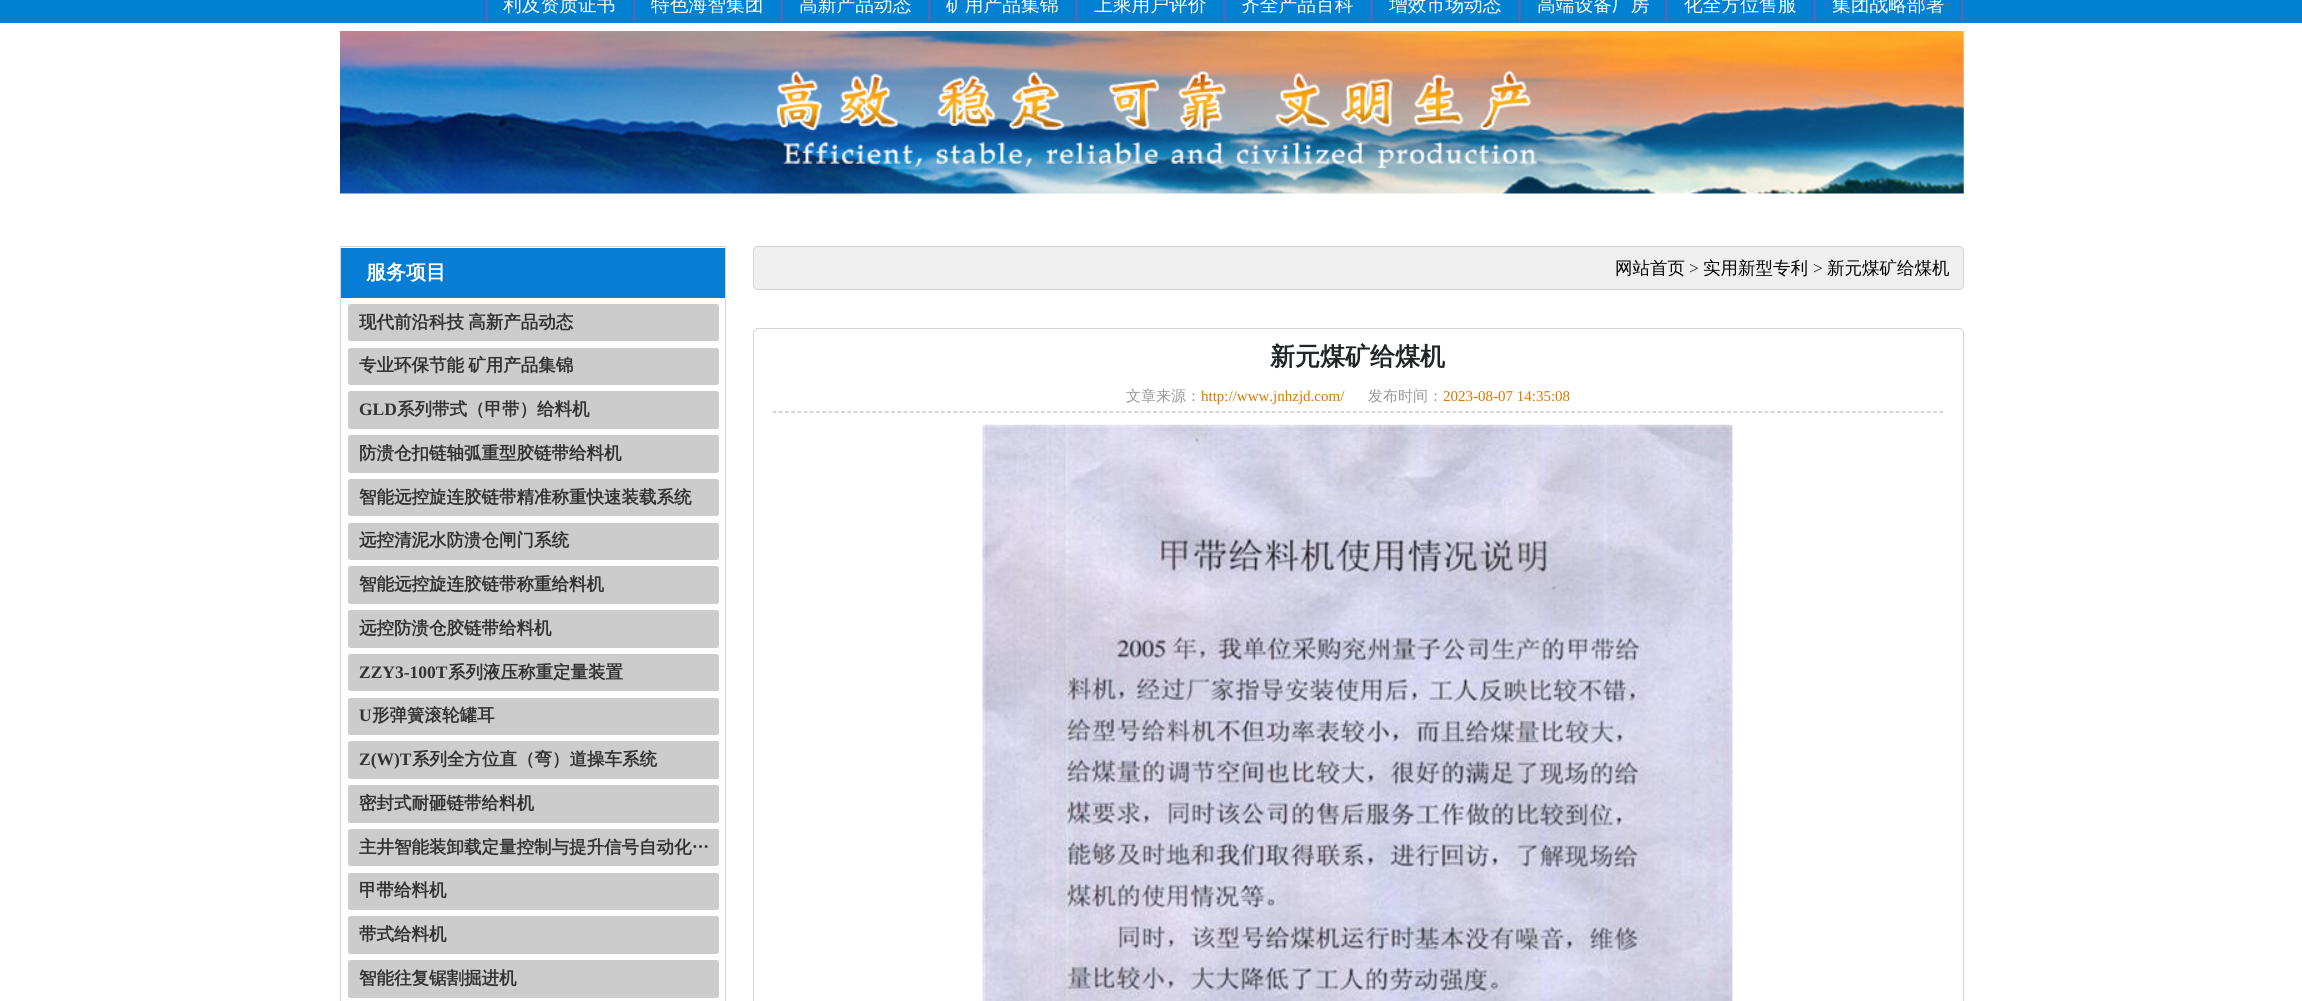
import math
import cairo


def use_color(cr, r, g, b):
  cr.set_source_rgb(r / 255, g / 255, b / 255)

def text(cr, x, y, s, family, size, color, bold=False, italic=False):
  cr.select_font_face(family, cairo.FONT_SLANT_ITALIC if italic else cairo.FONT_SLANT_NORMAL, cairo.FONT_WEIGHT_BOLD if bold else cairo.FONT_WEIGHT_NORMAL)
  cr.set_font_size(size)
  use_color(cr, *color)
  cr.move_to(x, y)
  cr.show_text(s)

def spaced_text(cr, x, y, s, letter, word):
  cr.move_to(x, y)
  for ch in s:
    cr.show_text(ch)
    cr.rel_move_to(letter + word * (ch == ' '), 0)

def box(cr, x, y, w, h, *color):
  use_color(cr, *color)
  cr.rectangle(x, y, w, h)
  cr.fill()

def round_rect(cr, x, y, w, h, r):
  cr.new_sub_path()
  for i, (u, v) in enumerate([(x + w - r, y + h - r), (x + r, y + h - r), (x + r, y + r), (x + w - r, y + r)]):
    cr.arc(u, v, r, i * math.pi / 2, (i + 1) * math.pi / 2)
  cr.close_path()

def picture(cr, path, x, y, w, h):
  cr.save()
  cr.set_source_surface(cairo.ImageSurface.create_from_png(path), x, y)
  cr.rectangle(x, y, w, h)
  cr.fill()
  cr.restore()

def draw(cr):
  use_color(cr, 255, 255, 255)
  cr.paint()
  box(cr, 0, 0, 2302, 23, 0, 129, 210)
  box(cr, 485, 0, 3, 23, 66, 110, 190)
  box(cr, 633, 0, 3, 23, 66, 110, 190)
  box(cr, 780, 0, 3, 23, 66, 110, 190)
  box(cr, 928, 0, 3, 23, 66, 110, 190)
  box(cr, 1075, 0, 3, 23, 66, 110, 190)
  box(cr, 1223, 0, 3, 23, 66, 110, 190)
  box(cr, 1370, 0, 3, 23, 66, 110, 190)
  box(cr, 1518, 0, 3, 23, 66, 110, 190)
  box(cr, 1665, 0, 3, 23, 66, 110, 190)
  box(cr, 1813, 0, 3, 23, 66, 110, 190)
  box(cr, 1961, 0, 3, 23, 66, 110, 190)
  picture(cr, "img_01.png", 340, 31, 1624, 163)
  cr.rectangle(340.5, 246.5, 385, 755)
  use_color(cr, 213, 213, 213)
  cr.set_line_width(1)
  cr.stroke()
  box(cr, 341, 248, 384, 50, 8, 125, 213)
  use_color(cr, 204, 204, 204)
  round_rect(cr, 348, 304, 371, 37, 2.5)
  cr.fill()
  round_rect(cr, 348, 348, 371, 37, 2.5)
  cr.fill()
  round_rect(cr, 348, 391, 371, 38, 2.5)
  cr.fill()
  round_rect(cr, 348, 435, 371, 38, 2.5)
  cr.fill()
  round_rect(cr, 348, 479, 371, 37, 2.5)
  cr.fill()
  round_rect(cr, 348, 523, 371, 37, 2.5)
  cr.fill()
  round_rect(cr, 348, 566, 371, 38, 2.5)
  cr.fill()
  round_rect(cr, 348, 610, 371, 38, 2.5)
  cr.fill()
  round_rect(cr, 348, 654, 371, 37, 2.5)
  cr.fill()
  round_rect(cr, 348, 698, 371, 37, 2.5)
  cr.fill()
  round_rect(cr, 348, 741, 371, 38, 2.5)
  cr.fill()
  round_rect(cr, 348, 785, 371, 38, 2.5)
  cr.fill()
  round_rect(cr, 348, 829, 371, 37, 2.5)
  cr.fill()
  round_rect(cr, 348, 873, 371, 37, 2.5)
  cr.fill()
  round_rect(cr, 348, 916, 371, 38, 2.5)
  cr.fill()
  round_rect(cr, 348, 960, 371, 38, 2.5)
  cr.fill()
  use_color(cr, 239, 239, 239)
  round_rect(cr, 753.5, 246.5, 1210, 43, 4.5)
  cr.fill_preserve()
  use_color(cr, 213, 213, 213)
  cr.stroke()
  round_rect(cr, 753.5, 328.5, 1210, 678, 4.5)
  cr.stroke()
  cr.new_path()
  cr.move_to(772.5, 412)
  cr.line_to(1944, 412)
  use_color(cr, 187, 187, 187)
  cr.set_line_width(1.2)
  cr.set_dash([3.75, 2.49])
  cr.stroke()
  picture(cr, "img_02.png", 982, 424, 751, 577)
  text(cr, 503, 11, "利及资质证书", "WenQuanYi Zen Hei Medium", 18.75, (255, 255, 255))
  text(cr, 651, 11, "特色海智集团", "WenQuanYi Zen Hei Medium", 18.75, (255, 255, 255))
  text(cr, 799, 11, "高新产品动态", "WenQuanYi Zen Hei Medium", 18.75, (255, 255, 255))
  text(cr, 946, 11, "矿用产品集锦", "WenQuanYi Zen Hei Medium", 18.75, (255, 255, 255))
  text(cr, 1094, 11, "上乘用户评价", "WenQuanYi Zen Hei Medium", 18.75, (255, 255, 255))
  text(cr, 1241, 11, "齐全产品百科", "WenQuanYi Zen Hei Medium", 18.75, (255, 255, 255))
  text(cr, 1389, 11, "增效市场动态", "WenQuanYi Zen Hei Medium", 18.75, (255, 255, 255))
  text(cr, 1537, 11, "高端设备厂房", "WenQuanYi Zen Hei Medium", 18.75, (255, 255, 255))
  text(cr, 1684, 11, "化全方位售服", "WenQuanYi Zen Hei Medium", 18.75, (255, 255, 255))
  text(cr, 1832, 11, "集团战略部署", "WenQuanYi Zen Hei Medium", 18.75, (255, 255, 255))
  text(cr, 366, 279, "服务项目", "WenQuanYi Zen Hei", 20, (255, 255, 255), bold=True)
  cr.set_font_size(17.5)
  use_color(cr, 51, 51, 51)
  spaced_text(cr, 359, 328, "现代前沿科技 高新产品动态", 0, -1)
  spaced_text(cr, 359, 371, "专业环保节能 矿用产品集锦", 0, -1)
  text(cr, 359, 415, "GLD", "Liberation Serif", 17.5, (51, 51, 51), bold=True)
  text(cr, 397, 415, "系列带式（甲带）给料机", "WenQuanYi Zen Hei", 17.5, (51, 51, 51), bold=True)
  text(cr, 359, 459, "防溃仓扣链轴弧重型胶链带给料机", "WenQuanYi Zen Hei", 17.5, (51, 51, 51), bold=True)
  text(cr, 359, 503, "智能远控旋连胶链带精准称重快速装载系统", "WenQuanYi Zen Hei", 17.5, (51, 51, 51), bold=True)
  text(cr, 359, 546, "远控清泥水防溃仓闸门系统", "WenQuanYi Zen Hei", 17.5, (51, 51, 51), bold=True)
  text(cr, 359, 590, "智能远控旋连胶链带称重给料机", "WenQuanYi Zen Hei", 17.5, (51, 51, 51), bold=True)
  text(cr, 359, 634, "远控防溃仓胶链带给料机", "WenQuanYi Zen Hei", 17.5, (51, 51, 51), bold=True)
  text(cr, 359, 678, "ZZY3-100T", "Liberation Serif", 17.5, (51, 51, 51), bold=True)
  text(cr, 448, 678, "系列液压称重定量装置", "WenQuanYi Zen Hei", 17.5, (51, 51, 51), bold=True)
  text(cr, 359, 721, "U", "Liberation Serif", 17.5, (51, 51, 51), bold=True)
  text(cr, 372, 721, "形弹簧滚轮罐耳", "WenQuanYi Zen Hei", 17.5, (51, 51, 51), bold=True)
  text(cr, 359, 765, "Z(W)T", "Liberation Serif", 17.5, (51, 51, 51), bold=True)
  text(cr, 412, 765, "系列全方位直（弯）道操车系统", "WenQuanYi Zen Hei", 17.5, (51, 51, 51), bold=True)
  text(cr, 359, 809, "密封式耐砸链带给料机", "WenQuanYi Zen Hei", 17.5, (51, 51, 51), bold=True)
  text(cr, 359, 853, "主井智能装卸载定量控制与提升信号自动化…", "WenQuanYi Zen Hei", 17.5, (51, 51, 51), bold=True)
  text(cr, 359, 896, "甲带给料机", "WenQuanYi Zen Hei", 17.5, (51, 51, 51), bold=True)
  text(cr, 359, 940, "带式给料机", "WenQuanYi Zen Hei", 17.5, (51, 51, 51), bold=True)
  text(cr, 359, 984, "智能往复锯割掘进机", "WenQuanYi Zen Hei", 17.5, (51, 51, 51), bold=True)
  text(cr, 1615, 274, "网站首页", "WenQuanYi Zen Hei Medium", 17.5, (0, 0, 0))
  text(cr, 1689, 274, ">", "Liberation Serif", 17.5, (33, 37, 41))
  text(cr, 1703, 274, "实用新型专利", "WenQuanYi Zen Hei Medium", 17.5, (0, 0, 0))
  text(cr, 1813, 274, ">", "Liberation Serif", 17.5, (33, 37, 41))
  text(cr, 1827, 274, "新元煤矿给煤机", "WenQuanYi Zen Hei Medium", 17.5, (0, 0, 0))
  text(cr, 1270, 365, "新元煤矿给煤机", "WenQuanYi Zen Hei", 25, (33, 37, 41), bold=True)
  text(cr, 1126, 401, "文章来源：", "WenQuanYi Zen Hei Medium", 15, (153, 153, 153))
  text(cr, 1201, 401, "http://www.jnhzjd.com/", "Liberation Serif", 15, (218, 119, 2))
  text(cr, 1368, 401, "发布时间：", "WenQuanYi Zen Hei Medium", 15, (153, 153, 153))
  text(cr, 1443, 401, "2023-08-07 14:35:08", "Liberation Serif", 15, (218, 119, 2))


surface = cairo.ImageSurface(cairo.FORMAT_RGB24, 2302, 1001)
cr = cairo.Context(surface)
options = cairo.FontOptions()
options.set_hint_metrics(cairo.HINT_METRICS_OFF)
options.set_hint_style(cairo.HINT_STYLE_NONE)
cr.set_font_options(options)
cr.set_miter_limit(4)
draw(cr)
surface.write_to_png("out.png")
